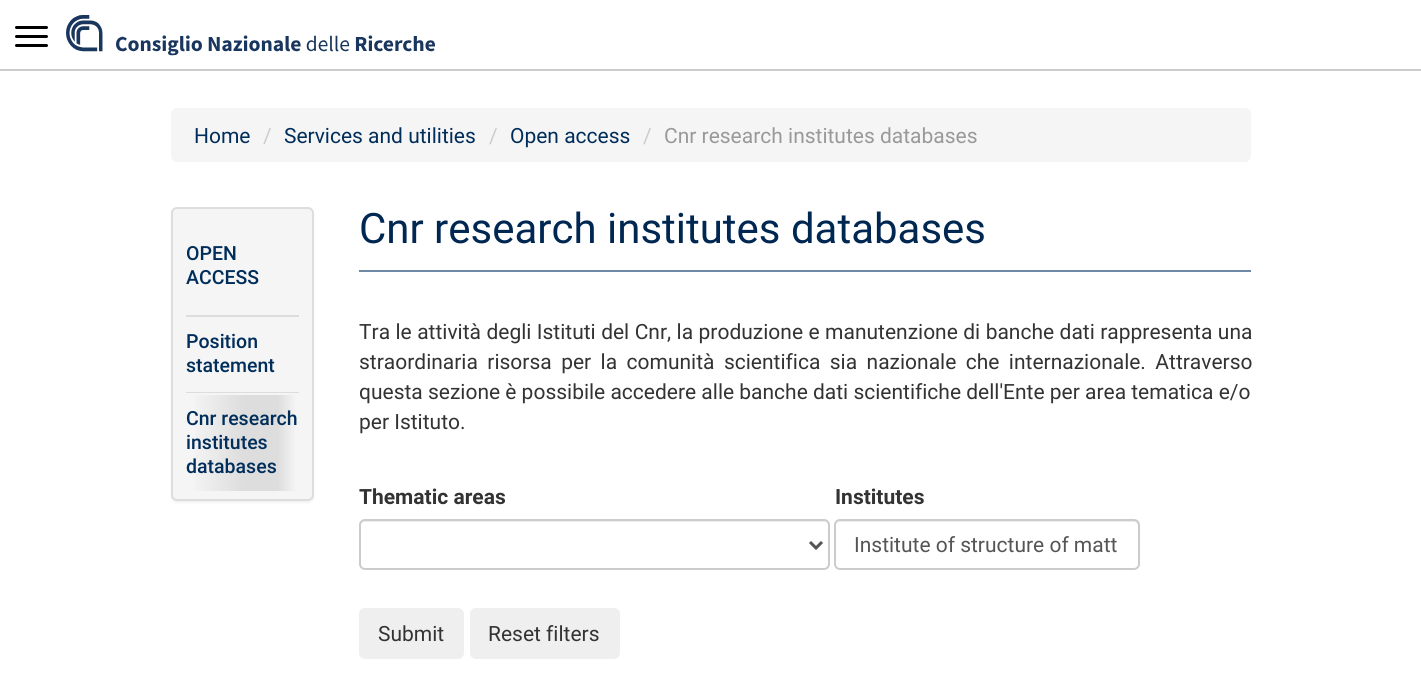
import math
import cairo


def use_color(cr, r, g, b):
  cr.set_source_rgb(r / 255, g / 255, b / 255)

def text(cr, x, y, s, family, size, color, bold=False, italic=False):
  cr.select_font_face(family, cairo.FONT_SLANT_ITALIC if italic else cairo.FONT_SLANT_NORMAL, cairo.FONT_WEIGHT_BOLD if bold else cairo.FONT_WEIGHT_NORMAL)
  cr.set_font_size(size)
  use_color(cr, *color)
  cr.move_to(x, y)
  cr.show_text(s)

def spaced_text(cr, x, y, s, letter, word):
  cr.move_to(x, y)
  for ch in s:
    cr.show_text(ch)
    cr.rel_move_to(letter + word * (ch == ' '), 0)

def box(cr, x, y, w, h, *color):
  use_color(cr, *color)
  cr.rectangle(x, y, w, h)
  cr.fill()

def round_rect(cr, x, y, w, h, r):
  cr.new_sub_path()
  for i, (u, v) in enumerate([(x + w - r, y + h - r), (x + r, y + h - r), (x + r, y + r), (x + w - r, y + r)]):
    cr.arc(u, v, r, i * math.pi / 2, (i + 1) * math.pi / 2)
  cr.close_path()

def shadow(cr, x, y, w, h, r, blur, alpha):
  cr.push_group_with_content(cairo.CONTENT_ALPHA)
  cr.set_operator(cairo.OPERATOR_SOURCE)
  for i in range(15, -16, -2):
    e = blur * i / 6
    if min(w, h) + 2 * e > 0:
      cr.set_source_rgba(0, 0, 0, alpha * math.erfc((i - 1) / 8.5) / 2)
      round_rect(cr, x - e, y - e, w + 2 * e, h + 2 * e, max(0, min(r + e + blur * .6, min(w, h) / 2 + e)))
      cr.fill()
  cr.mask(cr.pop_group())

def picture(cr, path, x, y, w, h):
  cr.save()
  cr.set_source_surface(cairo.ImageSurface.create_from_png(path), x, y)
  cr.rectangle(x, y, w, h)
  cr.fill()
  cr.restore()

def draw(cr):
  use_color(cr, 255, 255, 255)
  cr.paint()
  box(cr, 0, 69, 1421, 2, 204, 204, 204)
  picture(cr, "img_01.png", 66, 15, 369, 41)
  use_color(cr, 0, 0, 0)
  round_rect(cr, 15, 26, 33, 3, 1.5)
  cr.fill()
  round_rect(cr, 15, 35, 33, 3, 1.5)
  cr.fill()
  round_rect(cr, 15, 44, 33, 3, 1.5)
  cr.fill()
  use_color(cr, 245, 245, 245)
  round_rect(cr, 171, 108, 1080, 54, 6)
  cr.fill()
  use_color(cr, 0, 0, 0)
  shadow(cr, 171, 209, 143, 294, 6, 1, 0.05)
  use_color(cr, 245, 245, 245)
  round_rect(cr, 172, 208, 141, 292, 5)
  cr.fill_preserve()
  use_color(cr, 221, 221, 221)
  cr.stroke()
  box(cr, 186, 315, 113, 2, 221, 221, 221)
  box(cr, 186, 392, 113, 1, 221, 221, 221)
  gradient = cairo.LinearGradient(186, 443, 299, 443)
  gradient.add_color_stop_rgba(0.03, 0.961, 0.961, 0.961, 1)
  gradient.add_color_stop_rgba(0.51, 0.867, 0.867, 0.867, 1)
  gradient.add_color_stop_rgba(0.81, 0.867, 0.867, 0.867, 1)
  gradient.add_color_stop_rgba(0.98, 0.961, 0.961, 0.961, 1)
  cr.set_source(gradient)
  cr.rectangle(195, 395, 100, 96)
  cr.fill()
  box(cr, 359, 270, 892, 2, 110, 137, 164)
  use_color(cr, 236, 236, 236)
  cr.new_path()
  cr.move_to(364, 522)
  cr.line_to(824, 522)
  cr.curve_to(826, 522, 828, 524, 828, 526)
  cr.curve_to(828, 523, 826, 521, 823, 521)
  cr.line_to(365, 521)
  cr.curve_to(362, 521, 360, 523, 360, 526)
  cr.curve_to(360, 524, 362, 522, 364, 522)
  cr.close_path()
  cr.fill()
  round_rect(cr, 360, 520, 469, 49, 5)
  use_color(cr, 204, 204, 204)
  cr.stroke()
  cr.new_path()
  cr.move_to(810, 542)
  cr.line_to(816, 548)
  cr.line_to(822, 542)
  use_color(cr, 85, 85, 85)
  cr.set_line_width(3)
  cr.stroke()
  use_color(cr, 236, 236, 236)
  cr.new_path()
  cr.move_to(840, 522)
  cr.line_to(1134, 522)
  cr.curve_to(1136, 522, 1138, 524, 1138, 526)
  cr.line_to(1138, 567)
  cr.curve_to(1139, 566, 1139, 565, 1139, 564)
  cr.line_to(1139, 526)
  cr.curve_to(1139, 523, 1137, 521, 1134, 521)
  cr.line_to(841, 521)
  cr.curve_to(838, 521, 836, 523, 836, 526)
  cr.curve_to(836, 524, 838, 522, 840, 522)
  cr.close_path()
  cr.fill()
  round_rect(cr, 835, 520, 304, 49, 5)
  use_color(cr, 204, 204, 204)
  cr.set_line_width(2)
  cr.stroke()
  use_color(cr, 239, 239, 239)
  round_rect(cr, 359, 608, 105, 51, 6)
  cr.fill()
  round_rect(cr, 470, 608, 150, 51, 6)
  cr.fill()
  text(cr, 194, 143, "Home", "Roboto", 21, (0, 45, 90))
  text(cr, 263, 143, "/", "Roboto", 21, (204, 204, 204))
  text(cr, 284, 143, "Services and utilities", "Roboto", 21, (0, 45, 90))
  text(cr, 489, 143, "/", "Roboto", 21, (204, 204, 204))
  text(cr, 510, 143, "Open access", "Roboto", 21, (0, 45, 90))
  text(cr, 643, 143, "/", "Roboto", 21, (204, 204, 204))
  text(cr, 664, 143, "Cnr research institutes databases", "Roboto", 21, (153, 153, 153))
  text(cr, 186, 260, "OPEN", "Roboto Medium", 19.5, (0, 45, 90))
  text(cr, 186, 284, "ACCESS", "Roboto Medium", 19.5, (0, 45, 90))
  text(cr, 186, 348, "Position", "Roboto Medium", 19.5, (0, 45, 90))
  text(cr, 186, 372, "statement", "Roboto Medium", 19.5, (0, 45, 90))
  text(cr, 186, 425, "Cnr research", "Roboto Medium", 19.5, (0, 45, 90))
  text(cr, 186, 449, "institutes", "Roboto Medium", 19.5, (0, 45, 90))
  text(cr, 186, 473, "databases", "Roboto Medium", 19.5, (0, 45, 90))
  text(cr, 359, 243, "Cnr research institutes databases", "Roboto", 42, (0, 39, 82))
  cr.set_font_size(21)
  use_color(cr, 51, 51, 51)
  spaced_text(cr, 359, 339, "Tra le attività degli Istituti del Cnr, la produzione e manutenzione di banche dati rappresenta una", 0, 0.25)
  spaced_text(cr, 359, 369, "straordinaria risorsa per la comunità scientifica sia nazionale che internazionale. Attraverso", 0, 4.25)
  text(cr, 359, 399, "questa sezione è possibile accedere alle banche dati scientifiche dell'Ente per area tematica e/o", "Roboto", 21, (51, 51, 51))
  text(cr, 359, 429, "per Istituto.", "Roboto", 21, (51, 51, 51))
  text(cr, 359, 504, "Thematic areas", "Roboto", 21, (51, 51, 51), bold=True)
  text(cr, 835, 504, "Institutes", "Roboto", 21, (51, 51, 51), bold=True)
  text(cr, 854, 552, "Institute of structure of matt", "Roboto", 21, (85, 85, 85))
  text(cr, 378, 641, "Submit", "Roboto", 21, (51, 51, 51))
  text(cr, 488, 641, "Reset filters", "Roboto", 21, (51, 51, 51))


surface = cairo.ImageSurface(cairo.FORMAT_RGB24, 1421, 682)
cr = cairo.Context(surface)
options = cairo.FontOptions()
options.set_hint_metrics(cairo.HINT_METRICS_OFF)
options.set_hint_style(cairo.HINT_STYLE_NONE)
cr.set_font_options(options)
cr.set_miter_limit(4)
draw(cr)
surface.write_to_png("out.png")
